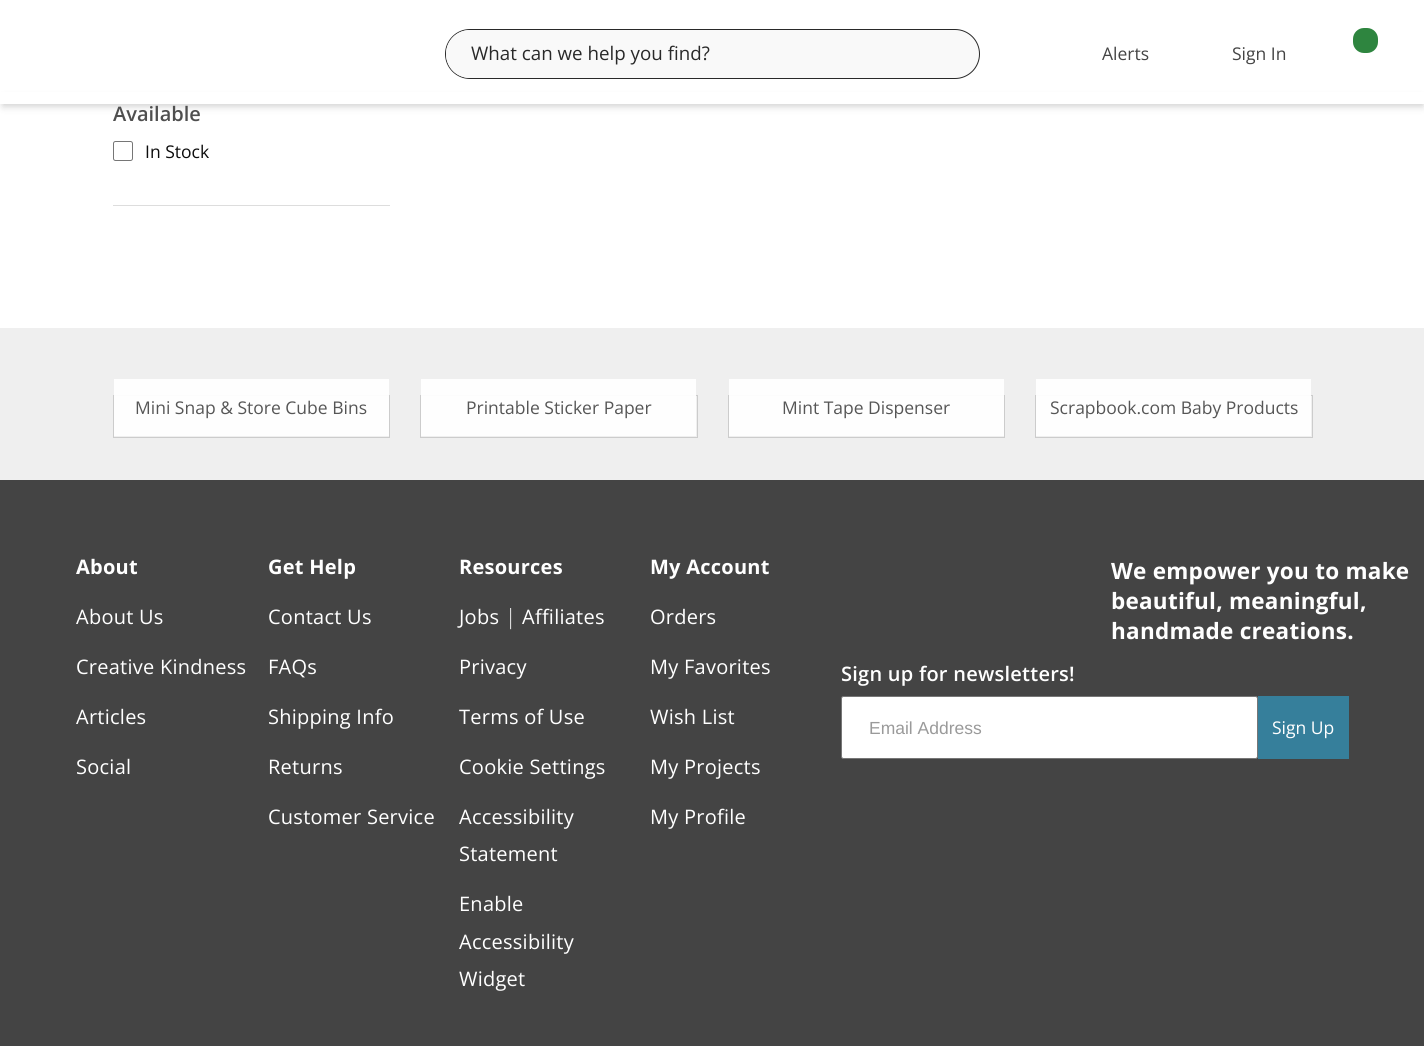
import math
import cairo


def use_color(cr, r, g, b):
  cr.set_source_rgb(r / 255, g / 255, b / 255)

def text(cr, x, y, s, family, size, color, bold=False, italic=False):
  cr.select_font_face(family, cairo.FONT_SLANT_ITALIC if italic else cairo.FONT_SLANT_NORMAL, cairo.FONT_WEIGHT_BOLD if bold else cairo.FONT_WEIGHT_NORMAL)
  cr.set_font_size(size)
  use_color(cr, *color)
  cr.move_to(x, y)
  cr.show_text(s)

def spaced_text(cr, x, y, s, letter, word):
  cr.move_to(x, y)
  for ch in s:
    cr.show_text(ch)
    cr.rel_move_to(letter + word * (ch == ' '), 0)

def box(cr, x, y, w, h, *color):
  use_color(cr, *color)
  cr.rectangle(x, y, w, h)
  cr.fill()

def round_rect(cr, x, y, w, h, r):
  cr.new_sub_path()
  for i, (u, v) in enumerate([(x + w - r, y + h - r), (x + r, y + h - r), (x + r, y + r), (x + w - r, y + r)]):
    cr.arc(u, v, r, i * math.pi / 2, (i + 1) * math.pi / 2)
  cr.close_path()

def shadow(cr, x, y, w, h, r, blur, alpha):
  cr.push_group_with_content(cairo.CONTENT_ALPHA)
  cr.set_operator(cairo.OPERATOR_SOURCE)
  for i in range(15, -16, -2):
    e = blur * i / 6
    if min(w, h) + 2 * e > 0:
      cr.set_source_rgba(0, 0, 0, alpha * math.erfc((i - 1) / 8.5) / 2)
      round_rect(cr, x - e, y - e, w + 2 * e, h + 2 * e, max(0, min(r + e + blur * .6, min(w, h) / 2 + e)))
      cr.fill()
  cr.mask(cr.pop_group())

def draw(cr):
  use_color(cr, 255, 255, 255)
  cr.paint()
  use_color(cr, 249, 249, 249)
  round_rect(cr, 445.5, 29.5, 534, 49, 24.5)
  cr.fill_preserve()
  use_color(cr, 41, 41, 41)
  cr.set_line_width(1)
  cr.stroke()
  use_color(cr, 249, 249, 249)
  cr.new_path()
  cr.move_to(470, 30)
  cr.line_to(938, 30)
  cr.line_to(938, 78)
  cr.line_to(470, 78)
  cr.curve_to(456.5, 78, 446, 67.5, 446, 54)
  cr.curve_to(446, 40.5, 456.5, 30, 470, 30)
  cr.close_path()
  cr.fill()
  use_color(cr, 46, 133, 63)
  round_rect(cr, 1351.5, 26.5, 28, 28, 12.5)
  cr.fill_preserve()
  use_color(cr, 255, 255, 255)
  cr.set_line_width(3)
  cr.stroke()
  use_color(cr, 0, 0, 0)
  shadow(cr, 3, 99, 1420, 7, 0, 4, 0.2)
  box(cr, 0, 92, 1424, 12, 255, 255, 255)
  box(cr, 113, 205, 277, 1, 221, 221, 221)
  round_rect(cr, 113.5, 141.5, 19, 19, 2)
  use_color(cr, 118, 118, 118)
  cr.set_line_width(1)
  cr.stroke()
  box(cr, 0, 480, 1424, 566, 68, 68, 68)
  box(cr, 0, 328, 1424, 152, 239, 239, 239)
  cr.rectangle(113.5, 395.5, 276, 42)
  use_color(cr, 204, 204, 204)
  cr.stroke()
  cr.set_source_rgba(1, 1, 1, 0.93)
  cr.rectangle(114, 379, 275, 57)
  cr.fill()
  cr.rectangle(420.5, 395.5, 277, 42)
  use_color(cr, 204, 204, 204)
  cr.stroke()
  cr.set_source_rgba(1, 1, 1, 0.93)
  cr.rectangle(421, 379, 275, 57)
  cr.fill()
  cr.rectangle(728.5, 395.5, 276, 42)
  use_color(cr, 204, 204, 204)
  cr.stroke()
  cr.set_source_rgba(1, 1, 1, 0.93)
  cr.rectangle(729, 379, 275, 57)
  cr.fill()
  cr.rectangle(1035.5, 395.5, 277, 42)
  use_color(cr, 204, 204, 204)
  cr.stroke()
  cr.set_source_rgba(1, 1, 1, 0.93)
  cr.rectangle(1036, 379, 275, 57)
  cr.fill()
  use_color(cr, 255, 255, 255)
  round_rect(cr, 841.5, 696.5, 416, 62, 2)
  cr.fill_preserve()
  use_color(cr, 118, 118, 118)
  cr.stroke()
  box(cr, 1258, 696, 91, 63, 54, 127, 155)
  text(cr, 471, 60, "What can we help you find?", "Open Sans", 18.75, (41, 41, 41))
  text(cr, 1102, 60, "Alerts", "Open Sans", 17.5, (68, 68, 68))
  text(cr, 1232, 60, "Sign In", "Open Sans", 17.5, (68, 68, 68))
  text(cr, 113, 121, "Available", "Open Sans SemiBold", 20, (79, 79, 79))
  text(cr, 145, 158, "In Stock", "Open Sans", 17.5, (12, 12, 12))
  text(cr, 135, 414, "Mini Snap & Store Cube Bins", "Open Sans", 17.5, (86, 86, 86))
  text(cr, 466, 414, "Printable Sticker Paper", "Open Sans", 17.5, (86, 86, 86))
  text(cr, 782, 414, "Mint Tape Dispenser", "Open Sans", 17.5, (86, 86, 86))
  text(cr, 1050, 414, "Scrapbook.com Baby Products", "Open Sans", 17.5, (86, 86, 86))
  cr.select_font_face("Open Sans", cairo.FONT_SLANT_NORMAL, cairo.FONT_WEIGHT_BOLD)
  cr.set_font_size(20)
  use_color(cr, 255, 255, 255)
  spaced_text(cr, 76, 574, "About", 0.25, 0)
  cr.select_font_face("Open Sans")
  spaced_text(cr, 76, 624, "About Us", 0.25, 0)
  spaced_text(cr, 76, 674, "Creative Kindness", 0.25, 0)
  spaced_text(cr, 76, 724, "Articles", 0.25, 0)
  spaced_text(cr, 76, 774, "Social", 0.25, 0)
  cr.select_font_face("Open Sans", cairo.FONT_SLANT_NORMAL, cairo.FONT_WEIGHT_BOLD)
  spaced_text(cr, 268, 574, "Get Help", 0.25, 0)
  cr.select_font_face("Open Sans")
  spaced_text(cr, 268, 624, "Contact Us", 0.25, 0)
  spaced_text(cr, 268, 674, "FAQs", 0.25, 0)
  spaced_text(cr, 268, 724, "Shipping Info", 0.25, 0)
  spaced_text(cr, 268, 774, "Returns", 0.25, 0)
  spaced_text(cr, 268, 824, "Customer Service", 0.25, 0)
  cr.select_font_face("Open Sans", cairo.FONT_SLANT_NORMAL, cairo.FONT_WEIGHT_BOLD)
  spaced_text(cr, 459, 574, "Resources", 0.25, 0)
  cr.select_font_face("Open Sans")
  spaced_text(cr, 459, 624, "Jobs", 0.25, 0)
  cr.select_font_face("Open Sans Light")
  cr.set_font_size(21)
  spaced_text(cr, 505, 624, "|", 0.25, 0)
  cr.select_font_face("Open Sans")
  cr.set_font_size(20)
  spaced_text(cr, 522, 624, "Affiliates", 0.25, 0)
  spaced_text(cr, 459, 674, "Privacy", 0.25, 0)
  spaced_text(cr, 459, 724, "Terms of Use", 0.25, 0)
  spaced_text(cr, 459, 774, "Cookie Settings", 0.25, 0)
  spaced_text(cr, 459, 824, "Accessibility", 0.25, 0)
  spaced_text(cr, 459, 861, "Statement", 0.25, 0)
  spaced_text(cr, 459, 911, "Enable", 0.25, 0)
  spaced_text(cr, 459, 949, "Accessibility", 0.25, 0)
  spaced_text(cr, 459, 986, "Widget", 0.25, 0)
  cr.select_font_face("Open Sans", cairo.FONT_SLANT_NORMAL, cairo.FONT_WEIGHT_BOLD)
  spaced_text(cr, 650, 574, "My Account", 0.25, 0)
  cr.select_font_face("Open Sans")
  spaced_text(cr, 650, 624, "Orders", 0.25, 0)
  spaced_text(cr, 650, 674, "My Favorites", 0.25, 0)
  spaced_text(cr, 650, 724, "Wish List", 0.25, 0)
  spaced_text(cr, 650, 774, "My Projects", 0.25, 0)
  spaced_text(cr, 650, 824, "My Profile", 0.25, 0)
  cr.select_font_face("Open Sans", cairo.FONT_SLANT_NORMAL, cairo.FONT_WEIGHT_BOLD)
  cr.set_font_size(22.5)
  spaced_text(cr, 1111, 579, "We empower you to make", 0.25, 0)
  spaced_text(cr, 1111, 609, "beautiful, meaningful,", 0.25, 0)
  spaced_text(cr, 1111, 639, "handmade creations.", 0.25, 0)
  cr.select_font_face("Open Sans SemiBold")
  cr.set_font_size(20)
  spaced_text(cr, 841, 681, "Sign up for newsletters!", 0.25, 0)
  text(cr, 869, 734, "Email Address", "Liberation Sans", 17.5, (154, 154, 154))
  text(cr, 1272, 734, "Sign Up", "Open Sans", 17.5, (255, 255, 255))


surface = cairo.ImageSurface(cairo.FORMAT_RGB24, 1424, 1046)
cr = cairo.Context(surface)
options = cairo.FontOptions()
options.set_hint_metrics(cairo.HINT_METRICS_OFF)
options.set_hint_style(cairo.HINT_STYLE_NONE)
cr.set_font_options(options)
cr.set_miter_limit(4)
draw(cr)
surface.write_to_png("out.png")
